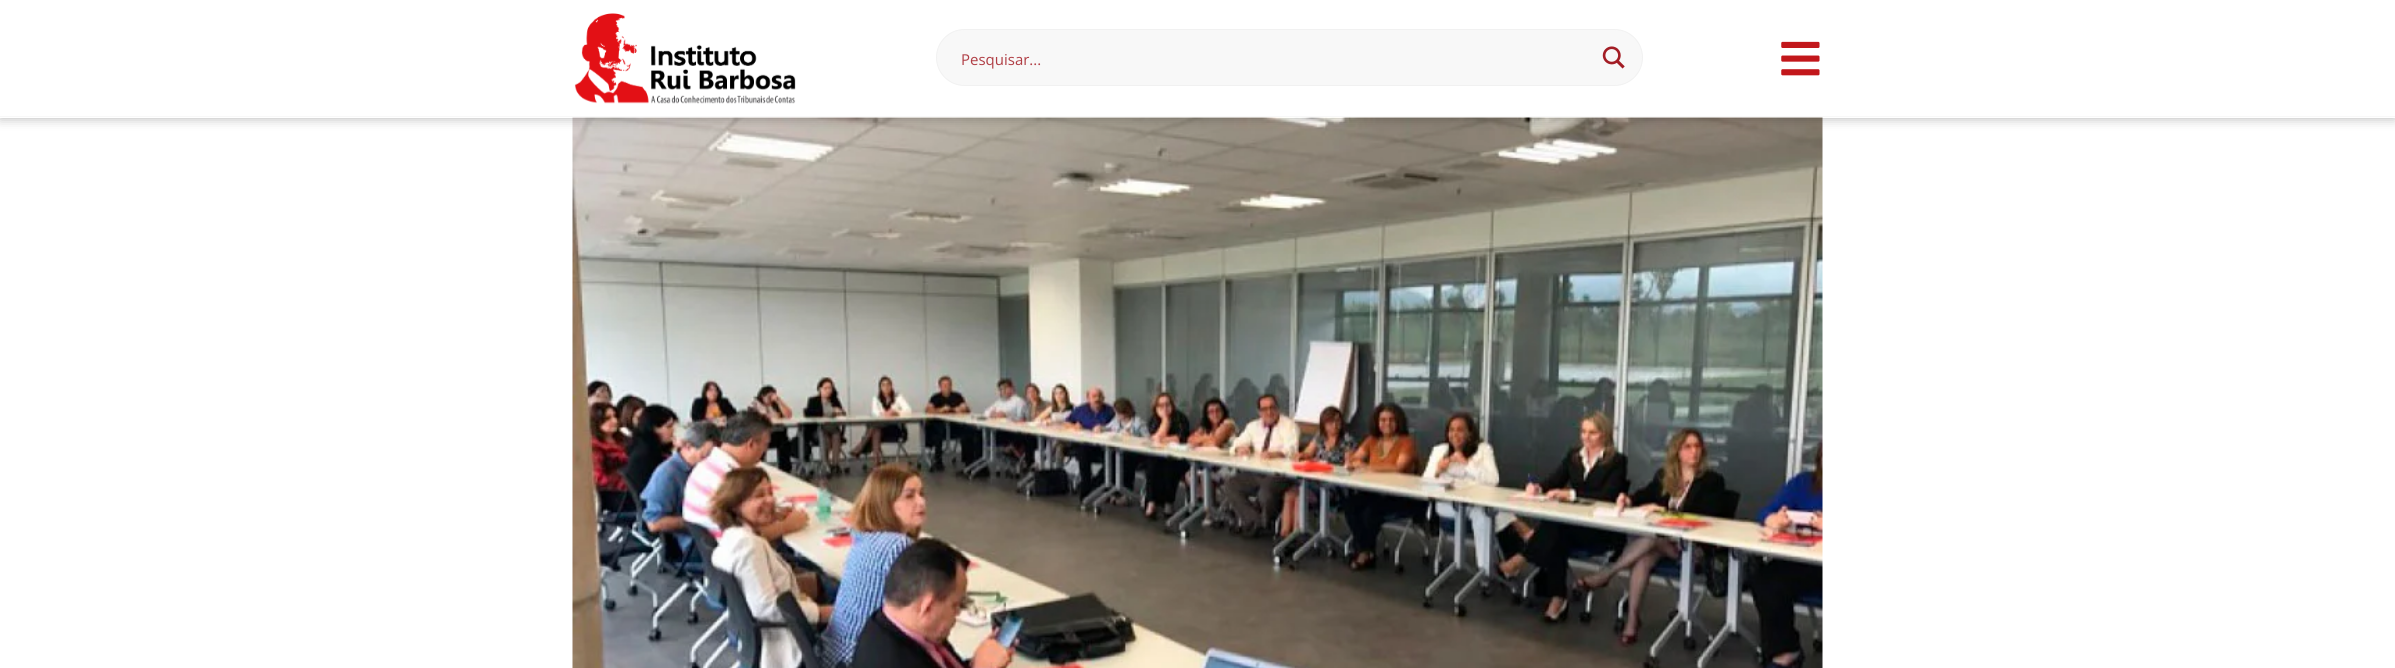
import math
import cairo


def use_color(cr, r, g, b):
  cr.set_source_rgb(r / 255, g / 255, b / 255)

def text(cr, x, y, s, family, size, color, bold=False, italic=False):
  cr.select_font_face(family, cairo.FONT_SLANT_ITALIC if italic else cairo.FONT_SLANT_NORMAL, cairo.FONT_WEIGHT_BOLD if bold else cairo.FONT_WEIGHT_NORMAL)
  cr.set_font_size(size)
  use_color(cr, *color)
  cr.move_to(x, y)
  cr.show_text(s)

def box(cr, x, y, w, h, *color):
  use_color(cr, *color)
  cr.rectangle(x, y, w, h)
  cr.fill()

def round_rect(cr, x, y, w, h, r):
  cr.new_sub_path()
  for i, (u, v) in enumerate([(x + w - r, y + h - r), (x + r, y + h - r), (x + r, y + r), (x + w - r, y + r)]):
    cr.arc(u, v, r, i * math.pi / 2, (i + 1) * math.pi / 2)
  cr.close_path()

def shadow(cr, x, y, w, h, r, blur, alpha):
  cr.push_group_with_content(cairo.CONTENT_ALPHA)
  cr.set_operator(cairo.OPERATOR_SOURCE)
  for i in range(15, -16, -2):
    e = blur * i / 6
    if min(w, h) + 2 * e > 0:
      cr.set_source_rgba(0, 0, 0, alpha * math.erfc((i - 1) / 8.5) / 2)
      round_rect(cr, x - e, y - e, w + 2 * e, h + 2 * e, max(0, min(r + e + blur * .6, min(w, h) / 2 + e)))
      cr.fill()
  cr.mask(cr.pop_group())

def picture(cr, path, x, y, w, h):
  cr.save()
  cr.set_source_surface(cairo.ImageSurface.create_from_png(path), x, y)
  cr.rectangle(x, y, w, h)
  cr.fill()
  cr.restore()

def draw(cr):
  use_color(cr, 255, 255, 255)
  cr.paint()
  picture(cr, "img_04.png", 572, 117, 1251, 551)
  cr.save()
  cr.set_fill_rule(cairo.FILL_RULE_EVEN_ODD)
  cr.new_path()
  cr.move_to(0, 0)
  cr.line_to(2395, 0)
  cr.line_to(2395, 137)
  cr.line_to(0, 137)
  cr.close_path()
  cr.move_to(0, 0)
  cr.line_to(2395, 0)
  cr.line_to(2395, 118)
  cr.line_to(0, 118)
  cr.close_path()
  cr.clip()
  use_color(cr, 0, 0, 0)
  shadow(cr, 0, 0, 2395, 118, 0, 6, 0.3)
  cr.restore()
  box(cr, 0, 116, 2395, 1, 248, 248, 248)
  picture(cr, "img_01.png", 574, 13, 222, 91)
  round_rect(cr, 936.5, 29.5, 706, 56, 28)
  cr.fill_preserve()
  use_color(cr, 241, 241, 241)
  cr.set_line_width(1)
  cr.stroke()
  picture(cr, "img_02.png", 1602, 46, 23, 23)
  picture(cr, "img_03.png", 1781, 41, 39, 35)
  text(cr, 961, 65, "Pesquisar...", "Open Sans", 15, (176, 62, 69))


surface = cairo.ImageSurface(cairo.FORMAT_RGB24, 2395, 668)
cr = cairo.Context(surface)
options = cairo.FontOptions()
options.set_hint_metrics(cairo.HINT_METRICS_OFF)
options.set_hint_style(cairo.HINT_STYLE_NONE)
cr.set_font_options(options)
cr.set_miter_limit(4)
draw(cr)
surface.write_to_png("out.png")
